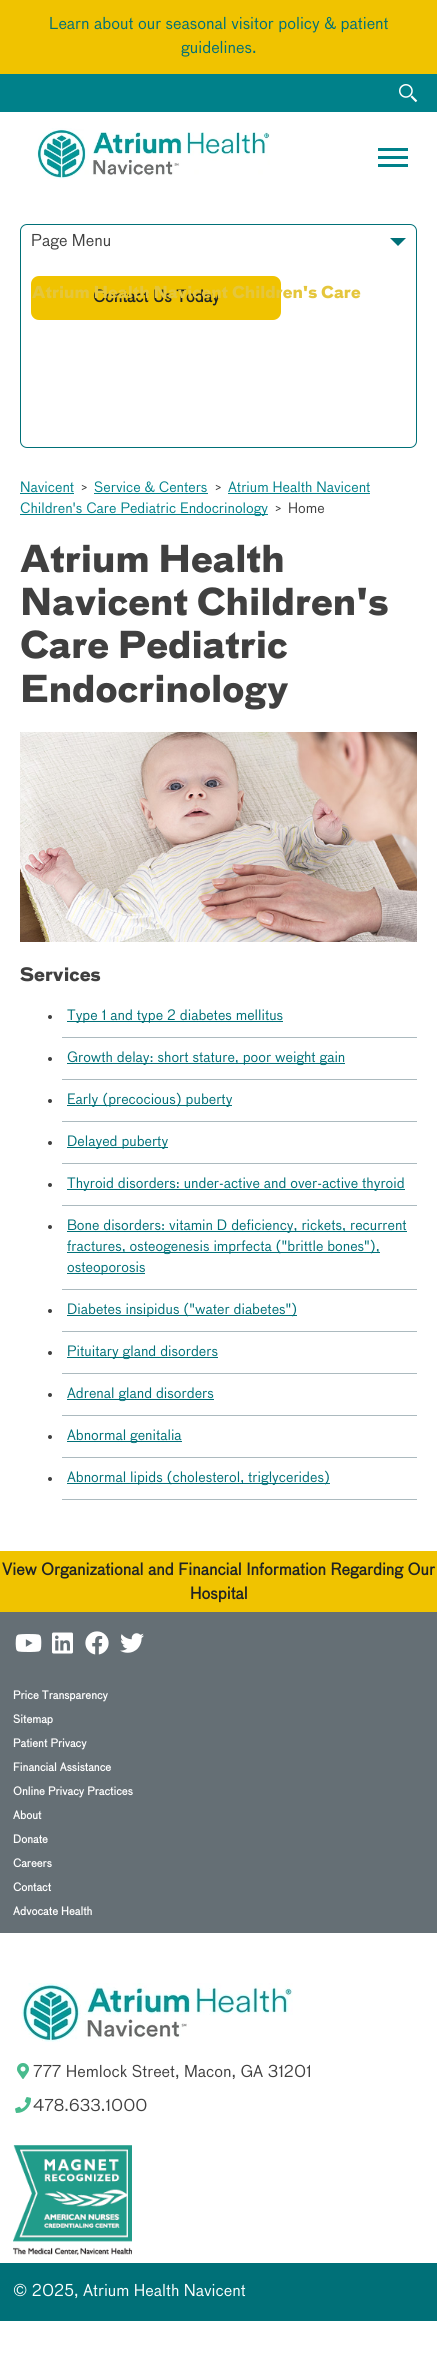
import math
import cairo


def use_color(cr, r, g, b):
  cr.set_source_rgb(r / 255, g / 255, b / 255)

def text(cr, x, y, s, family, size, color, bold=False, italic=False):
  cr.select_font_face(family, cairo.FONT_SLANT_ITALIC if italic else cairo.FONT_SLANT_NORMAL, cairo.FONT_WEIGHT_BOLD if bold else cairo.FONT_WEIGHT_NORMAL)
  cr.set_font_size(size)
  use_color(cr, *color)
  cr.move_to(x, y)
  cr.show_text(s)

def box(cr, x, y, w, h, *color):
  use_color(cr, *color)
  cr.rectangle(x, y, w, h)
  cr.fill()

def round_rect(cr, x, y, w, h, r):
  cr.new_sub_path()
  for i, (u, v) in enumerate([(x + w - r, y + h - r), (x + r, y + h - r), (x + r, y + r), (x + w - r, y + r)]):
    cr.arc(u, v, r, i * math.pi / 2, (i + 1) * math.pi / 2)
  cr.close_path()

def picture(cr, path, x, y, w, h):
  cr.save()
  cr.set_source_surface(cairo.ImageSurface.create_from_png(path), x, y)
  cr.rectangle(x, y, w, h)
  cr.fill()
  cr.restore()

def draw(cr):
  use_color(cr, 255, 255, 255)
  cr.paint()
  box(cr, 0, 0, 437, 74, 240, 195, 0)
  box(cr, 0, 74, 437, 38, 0, 129, 138)
  picture(cr, "img_01.png", 399, 84, 19, 19)
  picture(cr, "img_02.png", 37, 128, 233, 51)
  box(cr, 378, 148, 30, 3, 0, 129, 138)
  box(cr, 378, 156, 30, 3, 0, 129, 138)
  box(cr, 378, 164, 30, 3, 0, 129, 138)
  round_rect(cr, 20.5, 224.5, 396, 223, 6.5)
  use_color(cr, 0, 112, 120)
  cr.set_line_width(1)
  cr.stroke()
  cr.new_path()
  cr.move_to(390, 238)
  cr.line_to(406, 238)
  cr.line_to(398, 246)
  cr.close_path()
  cr.fill()
  use_color(cr, 240, 195, 0)
  round_rect(cr, 31, 276, 250, 44, 8)
  cr.fill()
  box(cr, 20, 493, 54, 1, 0, 129, 138)
  box(cr, 94, 493, 114, 1, 0, 129, 138)
  box(cr, 228, 493, 142, 1, 0, 129, 138)
  box(cr, 20, 514, 248, 1, 0, 129, 138)
  picture(cr, "img_03.png", 20, 732, 397, 210)
  box(cr, 62, 1037, 355, 1, 172, 186, 191)
  use_color(cr, 64, 64, 64)
  cr.arc(50, 1017, 2, 0, 2 * math.pi)
  cr.fill()
  box(cr, 67, 1021, 216, 1, 0, 112, 120)
  box(cr, 62, 1079, 355, 1, 172, 186, 191)
  use_color(cr, 64, 64, 64)
  cr.arc(50, 1059, 2, 0, 2 * math.pi)
  cr.fill()
  box(cr, 67, 1063, 278, 1, 0, 112, 120)
  box(cr, 62, 1121, 355, 1, 172, 186, 191)
  use_color(cr, 64, 64, 64)
  cr.arc(50, 1101, 2, 0, 2 * math.pi)
  cr.fill()
  box(cr, 67, 1105, 165, 1, 0, 112, 120)
  box(cr, 62, 1163, 355, 1, 172, 186, 191)
  use_color(cr, 64, 64, 64)
  cr.arc(50, 1143, 2, 0, 2 * math.pi)
  cr.fill()
  box(cr, 67, 1147, 101, 1, 0, 112, 120)
  box(cr, 62, 1205, 355, 1, 172, 186, 191)
  use_color(cr, 64, 64, 64)
  cr.arc(50, 1185, 2, 0, 2 * math.pi)
  cr.fill()
  box(cr, 67, 1189, 338, 1, 0, 112, 120)
  box(cr, 62, 1289, 355, 1, 172, 186, 191)
  use_color(cr, 64, 64, 64)
  cr.arc(50, 1227, 2, 0, 2 * math.pi)
  cr.fill()
  box(cr, 67, 1231, 340, 1, 0, 112, 120)
  box(cr, 67, 1252, 313, 1, 0, 112, 120)
  box(cr, 67, 1273, 78, 1, 0, 112, 120)
  box(cr, 62, 1331, 355, 1, 172, 186, 191)
  use_color(cr, 64, 64, 64)
  cr.arc(50, 1311, 2, 0, 2 * math.pi)
  cr.fill()
  box(cr, 67, 1315, 230, 1, 0, 112, 120)
  box(cr, 62, 1373, 355, 1, 172, 186, 191)
  use_color(cr, 64, 64, 64)
  cr.arc(50, 1353, 2, 0, 2 * math.pi)
  cr.fill()
  box(cr, 67, 1357, 151, 1, 0, 112, 120)
  box(cr, 62, 1415, 355, 1, 172, 186, 191)
  use_color(cr, 64, 64, 64)
  cr.arc(50, 1395, 2, 0, 2 * math.pi)
  cr.fill()
  box(cr, 67, 1399, 147, 1, 0, 112, 120)
  box(cr, 62, 1457, 355, 1, 172, 186, 191)
  use_color(cr, 64, 64, 64)
  cr.arc(50, 1437, 2, 0, 2 * math.pi)
  cr.fill()
  box(cr, 67, 1441, 115, 1, 0, 112, 120)
  box(cr, 62, 1499, 355, 1, 172, 186, 191)
  use_color(cr, 64, 64, 64)
  cr.arc(50, 1479, 2, 0, 2 * math.pi)
  cr.fill()
  box(cr, 67, 1483, 263, 1, 0, 112, 120)
  box(cr, 0, 1551, 437, 61, 240, 195, 0)
  box(cr, 0, 1612, 437, 321, 101, 111, 117)
  picture(cr, "img_04.png", 15, 1634, 27, 18)
  picture(cr, "img_05.png", 52, 1632, 21, 22)
  picture(cr, "img_06.png", 85, 1631, 24, 24)
  picture(cr, "img_07.png", 120, 1633, 24, 20)
  picture(cr, "img_08.png", 21, 1983, 272, 59)
  picture(cr, "img_09.png", 17, 2063, 12, 16)
  picture(cr, "img_10.png", 15, 2097, 16, 16)
  picture(cr, "img_11.png", 13, 2145, 119, 110)
  box(cr, 0, 2263, 437, 58, 0, 112, 120)
  text(cr, 49, 29, "Learn about our seasonal visitor policy & patient", "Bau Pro", 16, (0, 112, 120))
  text(cr, 181, 53, "guidelines.", "Bau Pro", 16, (0, 112, 120))
  text(cr, 31, 246, "Page Menu", "Bau Pro", 16, (64, 64, 64))
  text(cr, 93, 302, "Contact Us Today", "Bau Pro", 16, (31, 35, 37), bold=True)
  text(cr, 32, 298, "Atrium Health Navicent Children's Care", "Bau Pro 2", 16, (229, 198, 60), bold=True)
  text(cr, 20, 492, "Navicent", "Bau Pro", 14, (0, 129, 138))
  text(cr, 81, 492, ">", "Bau Pro", 14, (64, 64, 64))
  text(cr, 94, 492, "Service & Centers", "Bau Pro", 14, (0, 129, 138))
  text(cr, 215, 492, ">", "Bau Pro", 14, (64, 64, 64))
  text(cr, 228, 492, "Atrium Health Navicent", "Bau Pro", 14, (0, 129, 138))
  text(cr, 20, 513, "Children's Care Pediatric Endocrinology", "Bau Pro", 14, (0, 129, 138))
  text(cr, 275, 513, ">", "Bau Pro", 14, (64, 64, 64))
  text(cr, 288, 513, "Home", "Bau Pro", 14, (64, 64, 64))
  text(cr, 20, 572, "Atrium Health", "Bau Pro 2", 36, (64, 64, 64), bold=True)
  text(cr, 20, 615, "Navicent Children's", "Bau Pro 2", 36, (64, 64, 64), bold=True)
  text(cr, 20, 658, "Care Pediatric", "Bau Pro 2", 36, (64, 64, 64), bold=True)
  text(cr, 20, 702, "Endocrinology", "Bau Pro 2", 36, (64, 64, 64), bold=True)
  text(cr, 20, 981, "Services", "Bau Pro 2", 18, (64, 64, 64), bold=True)
  text(cr, 67, 1020, "Type 1 and type 2 diabetes mellitus", "Bau Pro", 14, (0, 112, 120))
  text(cr, 67, 1062, "Growth delay: short stature, poor weight gain", "Bau Pro", 14, (0, 112, 120))
  text(cr, 67, 1104, "Early (precocious) puberty", "Bau Pro", 14, (0, 112, 120))
  text(cr, 67, 1146, "Delayed puberty", "Bau Pro", 14, (0, 112, 120))
  text(cr, 67, 1188, "Thyroid disorders: under-active and over-active thyroid", "Bau Pro", 14, (0, 112, 120))
  text(cr, 67, 1230, "Bone disorders: vitamin D deficiency, rickets, recurrent", "Bau Pro", 14, (0, 112, 120))
  text(cr, 67, 1251, "fractures, osteogenesis imprfecta (\"brittle bones\"),", "Bau Pro", 14, (0, 112, 120))
  text(cr, 67, 1272, "osteoporosis", "Bau Pro", 14, (0, 112, 120))
  text(cr, 67, 1314, "Diabetes insipidus (\"water diabetes\")", "Bau Pro", 14, (0, 112, 120))
  text(cr, 67, 1356, "Pituitary gland disorders", "Bau Pro", 14, (0, 112, 120))
  text(cr, 67, 1398, "Adrenal gland disorders", "Bau Pro", 14, (0, 112, 120))
  text(cr, 67, 1440, "Abnormal genitalia", "Bau Pro", 14, (0, 112, 120))
  text(cr, 67, 1482, "Abnormal lipids (cholesterol, triglycerides)", "Bau Pro", 14, (0, 112, 120))
  text(cr, 2, 1575, "View Organizational and Financial Information Regarding Our", "Bau Pro", 16, (31, 35, 37), bold=True)
  text(cr, 190, 1599, "Hospital", "Bau Pro", 16, (31, 35, 37), bold=True)
  text(cr, 13, 1699, "Price Transparency", "Bau Pro", 11, (255, 255, 255), bold=True)
  text(cr, 13, 1723, "Sitemap", "Bau Pro", 11, (255, 255, 255), bold=True)
  text(cr, 13, 1747, "Patient Privacy", "Bau Pro", 11, (255, 255, 255), bold=True)
  text(cr, 13, 1771, "Financial Assistance", "Bau Pro", 11, (255, 255, 255), bold=True)
  text(cr, 13, 1795, "Online Privacy Practices", "Bau Pro", 11, (255, 255, 255), bold=True)
  text(cr, 13, 1819, "About", "Bau Pro", 11, (255, 255, 255), bold=True)
  text(cr, 13, 1843, "Donate", "Bau Pro", 11, (255, 255, 255), bold=True)
  text(cr, 13, 1867, "Careers", "Bau Pro", 11, (255, 255, 255), bold=True)
  text(cr, 13, 1891, "Contact", "Bau Pro", 11, (255, 255, 255), bold=True)
  text(cr, 13, 1915, "Advocate Health", "Bau Pro", 11, (255, 255, 255), bold=True)
  text(cr, 33, 2077, "777 Hemlock Street, Macon, GA 31201", "Bau Pro", 16, (64, 64, 64))
  text(cr, 33, 2111, "478.633.1000", "Bau Pro", 16, (64, 64, 64))
  text(cr, 13, 2296, "© 2025, Atrium Health Navicent", "Bau Pro", 16, (255, 255, 255))


surface = cairo.ImageSurface(cairo.FORMAT_RGB24, 437, 2365)
cr = cairo.Context(surface)
options = cairo.FontOptions()
options.set_hint_metrics(cairo.HINT_METRICS_OFF)
options.set_hint_style(cairo.HINT_STYLE_NONE)
cr.set_font_options(options)
cr.set_miter_limit(4)
draw(cr)
surface.write_to_png("out.png")
